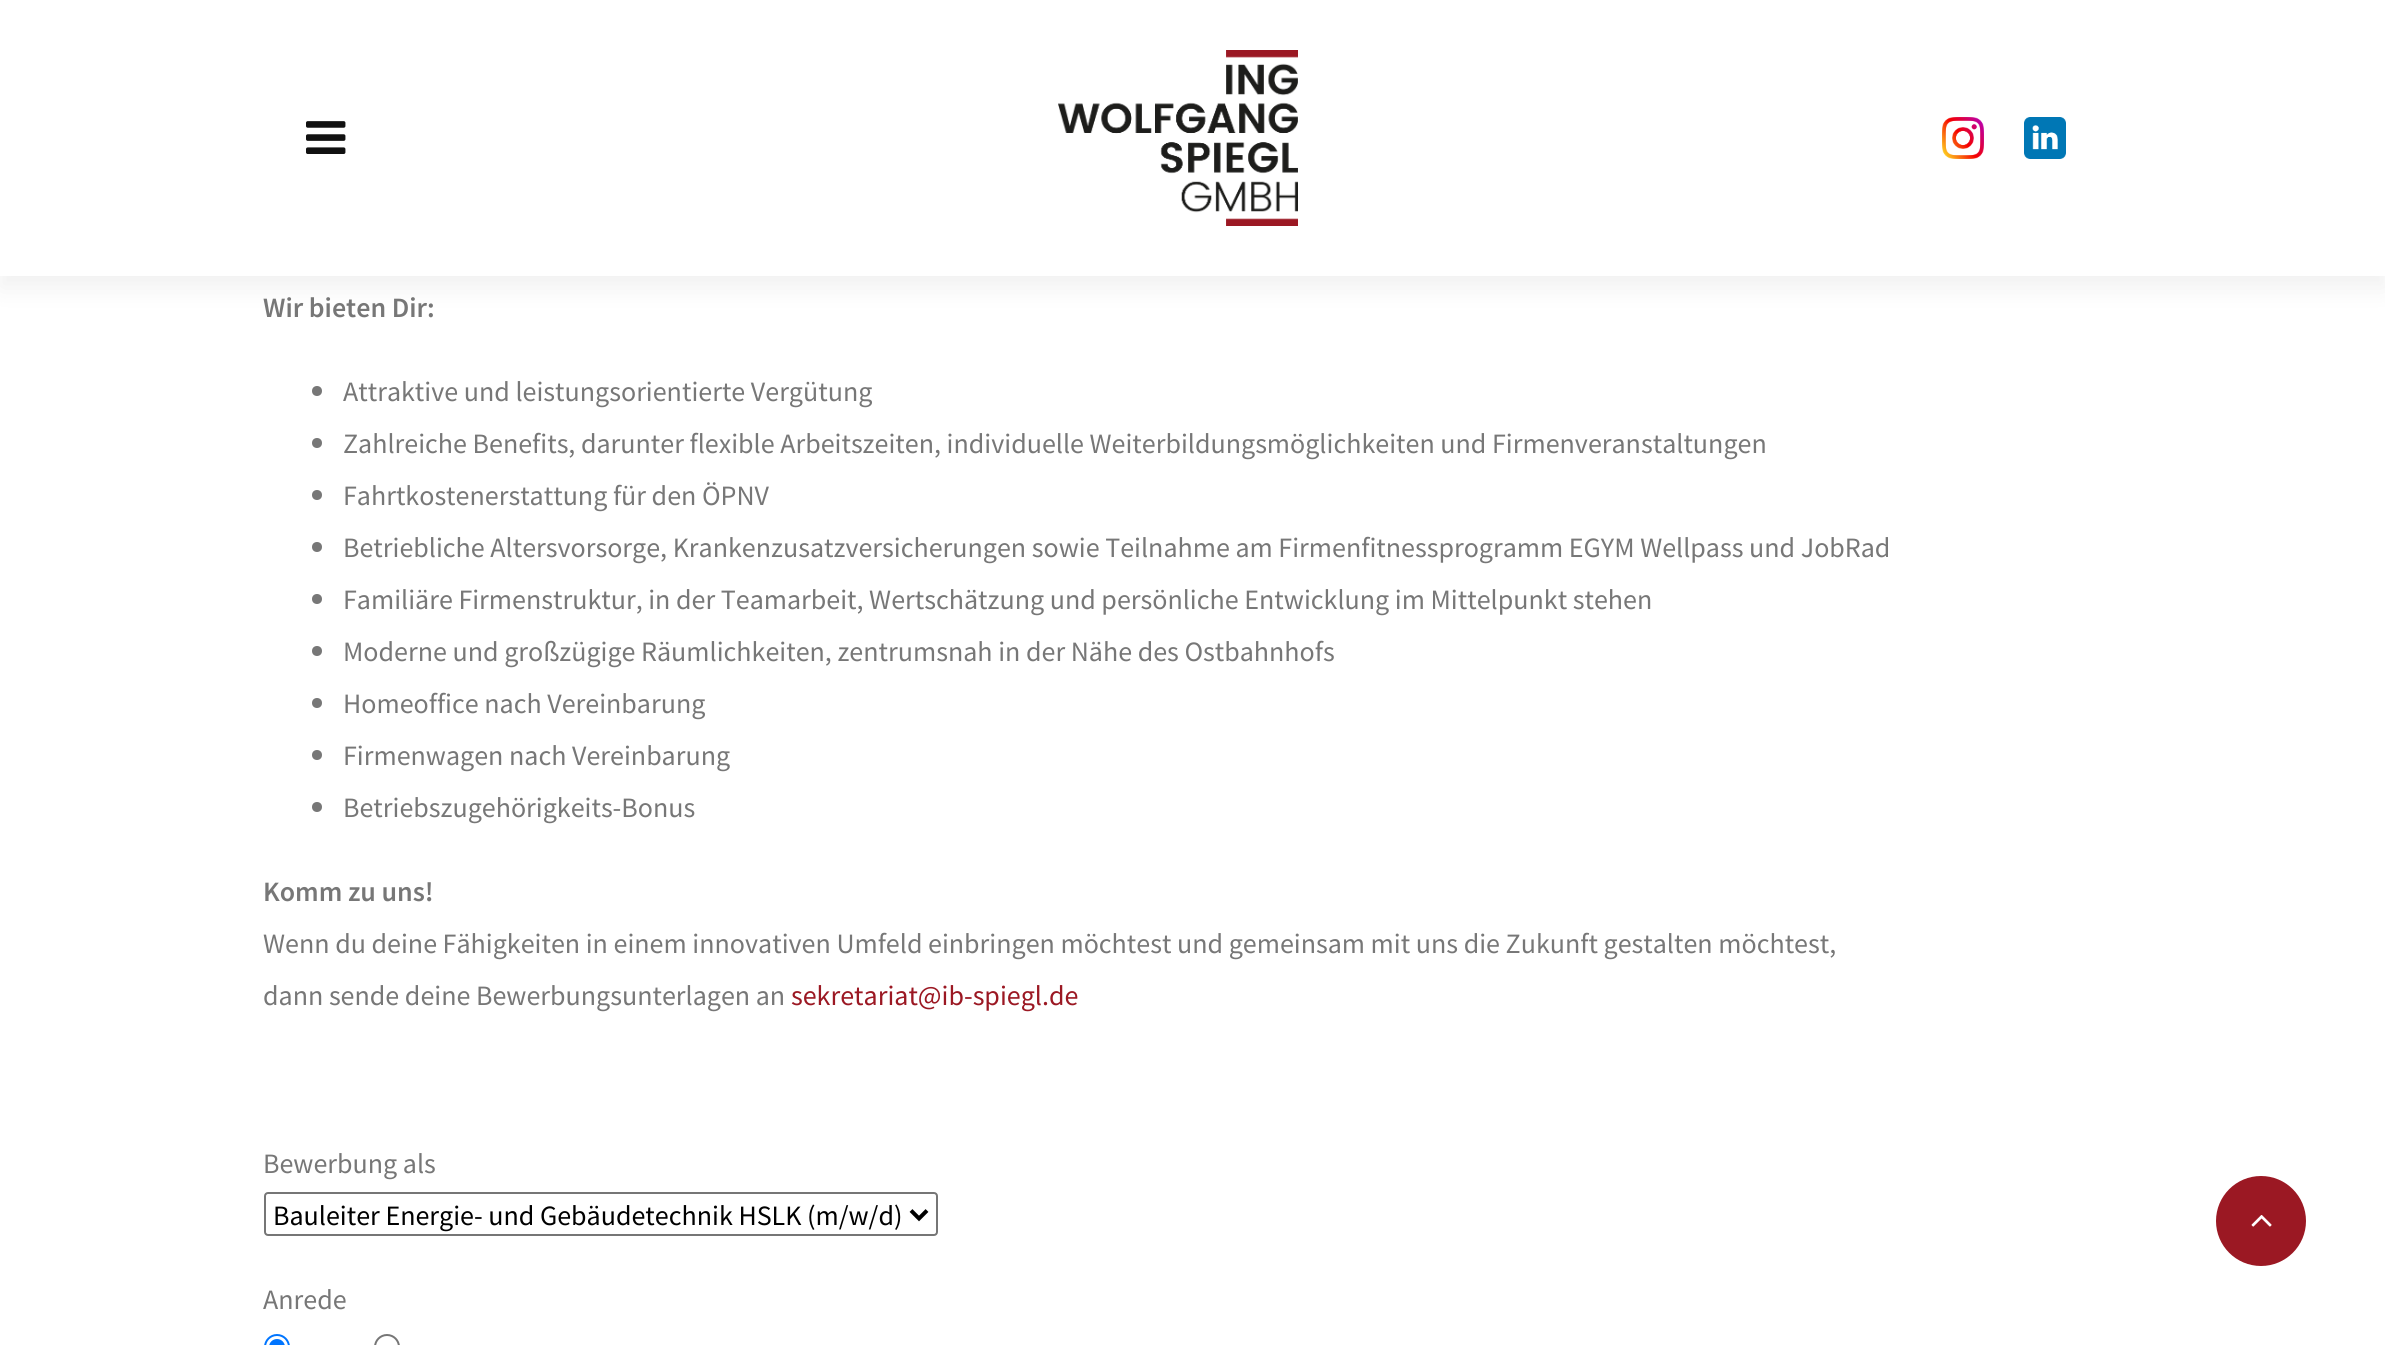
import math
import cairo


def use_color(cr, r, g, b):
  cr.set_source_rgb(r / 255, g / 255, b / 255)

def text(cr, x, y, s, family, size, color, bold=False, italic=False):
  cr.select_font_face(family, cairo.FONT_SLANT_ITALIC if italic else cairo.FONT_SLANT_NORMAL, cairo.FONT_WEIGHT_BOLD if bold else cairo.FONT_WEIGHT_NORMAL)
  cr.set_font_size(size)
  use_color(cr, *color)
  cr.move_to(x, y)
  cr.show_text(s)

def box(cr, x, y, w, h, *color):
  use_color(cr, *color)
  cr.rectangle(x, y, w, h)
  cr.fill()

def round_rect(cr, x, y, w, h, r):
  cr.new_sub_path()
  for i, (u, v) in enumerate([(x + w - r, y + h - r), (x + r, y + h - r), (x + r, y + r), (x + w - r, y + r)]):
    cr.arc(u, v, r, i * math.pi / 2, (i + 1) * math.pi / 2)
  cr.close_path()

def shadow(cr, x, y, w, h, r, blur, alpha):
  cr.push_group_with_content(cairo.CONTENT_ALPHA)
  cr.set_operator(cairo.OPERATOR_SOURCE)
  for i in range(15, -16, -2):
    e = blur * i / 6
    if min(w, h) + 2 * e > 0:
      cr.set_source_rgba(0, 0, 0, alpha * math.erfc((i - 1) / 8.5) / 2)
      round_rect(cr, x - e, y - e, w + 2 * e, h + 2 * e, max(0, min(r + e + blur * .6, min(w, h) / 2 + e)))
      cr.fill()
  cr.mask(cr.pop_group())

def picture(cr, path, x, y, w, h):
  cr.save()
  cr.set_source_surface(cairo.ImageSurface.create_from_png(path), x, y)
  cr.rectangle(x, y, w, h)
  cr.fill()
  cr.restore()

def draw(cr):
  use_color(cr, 255, 255, 255)
  cr.paint()
  use_color(cr, 0, 0, 0)
  shadow(cr, 0, 12, 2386, 276, 0, 13, 0.06)
  box(cr, 0, 0, 2385, 276, 255, 255, 255)
  picture(cr, "img_01.png", 306, 121, 40, 33)
  picture(cr, "img_02.png", 1058, 50, 240, 176)
  picture(cr, "img_03.png", 1942, 117, 42, 42)
  picture(cr, "img_04.png", 2024, 117, 42, 42)
  use_color(cr, 119, 119, 119)
  cr.arc(317, 391, 5, 0, 2 * math.pi)
  cr.fill()
  cr.arc(317, 443, 5, 0, 2 * math.pi)
  cr.fill()
  cr.arc(317, 495, 5, 0, 2 * math.pi)
  cr.fill()
  cr.arc(317, 547, 5, 0, 2 * math.pi)
  cr.fill()
  cr.arc(317, 599, 5, 0, 2 * math.pi)
  cr.fill()
  cr.arc(317, 651, 5, 0, 2 * math.pi)
  cr.fill()
  cr.arc(317, 703, 5, 0, 2 * math.pi)
  cr.fill()
  cr.arc(317, 755, 5, 0, 2 * math.pi)
  cr.fill()
  cr.arc(317, 807, 5, 0, 2 * math.pi)
  cr.fill()
  round_rect(cr, 265, 1193, 672, 42, 3)
  use_color(cr, 118, 118, 118)
  cr.stroke()
  cr.new_path()
  cr.move_to(911, 1210.5)
  cr.line_to(919, 1218.5)
  cr.line_to(927, 1210.5)
  use_color(cr, 0, 0, 0)
  cr.set_line_width(4)
  cr.stroke()
  cr.arc(277, 1347, 12, 0, 2 * math.pi)
  use_color(cr, 0, 117, 255)
  cr.set_line_width(2)
  cr.stroke()
  cr.arc(277, 1347, 8, 0, 2 * math.pi)
  cr.fill()
  cr.arc(387, 1347, 12, 0, 2 * math.pi)
  use_color(cr, 118, 118, 118)
  cr.stroke()
  use_color(cr, 155, 24, 35)
  cr.arc(2261, 1221, 45, 0, 2 * math.pi)
  cr.fill()
  picture(cr, "img_05.png", 2251, 1215, 21, 12)
  text(cr, 263, 317, "Wir bieten Dir:", "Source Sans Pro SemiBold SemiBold", 28, (119, 119, 119))
  text(cr, 343, 401, "Attraktive und leistungsorientierte Vergütung", "Source Sans Pro", 28, (119, 119, 119))
  text(cr, 343, 453, "Zahlreiche Benefits, darunter flexible Arbeitszeiten, individuelle Weiterbildungsmöglichkeiten und Firmenveranstaltungen", "Source Sans Pro", 28, (119, 119, 119))
  text(cr, 343, 505, "Fahrtkostenerstattung für den ÖPNV", "Source Sans Pro", 28, (119, 119, 119))
  text(cr, 343, 557, "Betriebliche Altersvorsorge, Krankenzusatzversicherungen sowie Teilnahme am Firmenfitnessprogramm EGYM Wellpass und JobRad", "Source Sans Pro", 28, (119, 119, 119))
  text(cr, 343, 609, "Familiäre Firmenstruktur, in der Teamarbeit, Wertschätzung und persönliche Entwicklung im Mittelpunkt stehen", "Source Sans Pro", 28, (119, 119, 119))
  text(cr, 343, 661, "Moderne und großzügige Räumlichkeiten, zentrumsnah in der Nähe des Ostbahnhofs", "Source Sans Pro", 28, (119, 119, 119))
  text(cr, 343, 713, "Homeoffice nach Vereinbarung", "Source Sans Pro", 28, (119, 119, 119))
  text(cr, 343, 765, "Firmenwagen nach Vereinbarung", "Source Sans Pro", 28, (119, 119, 119))
  text(cr, 343, 817, "Betriebszugehörigkeits-Bonus", "Source Sans Pro", 28, (119, 119, 119))
  text(cr, 263, 901, "Komm zu uns!", "Source Sans Pro SemiBold SemiBold", 28, (119, 119, 119))
  text(cr, 263, 953, "Wenn du deine Fähigkeiten in einem innovativen Umfeld einbringen möchtest und gemeinsam mit uns die Zukunft gestalten möchtest,", "Source Sans Pro", 28, (119, 119, 119))
  text(cr, 263, 1005, "dann sende deine Bewerbungsunterlagen an", "Source Sans Pro", 28, (119, 119, 119))
  text(cr, 791, 1005, "sekretariat@ib-spiegl.de", "Source Sans Pro", 28, (155, 24, 35))
  text(cr, 263, 1173, "Bewerbung als", "Source Sans Pro", 28, (119, 119, 119))
  text(cr, 273, 1225, "Bauleiter Energie- und Gebäudetechnik HSLK (m/w/d)", "Source Sans Pro", 28, (0, 0, 0))
  text(cr, 263, 1309, "Anrede", "Source Sans Pro", 28, (119, 119, 119))


surface = cairo.ImageSurface(cairo.FORMAT_RGB24, 2385, 1345)
cr = cairo.Context(surface)
options = cairo.FontOptions()
options.set_hint_metrics(cairo.HINT_METRICS_OFF)
options.set_hint_style(cairo.HINT_STYLE_NONE)
cr.set_font_options(options)
cr.set_miter_limit(4)
draw(cr)
surface.write_to_png("out.png")
